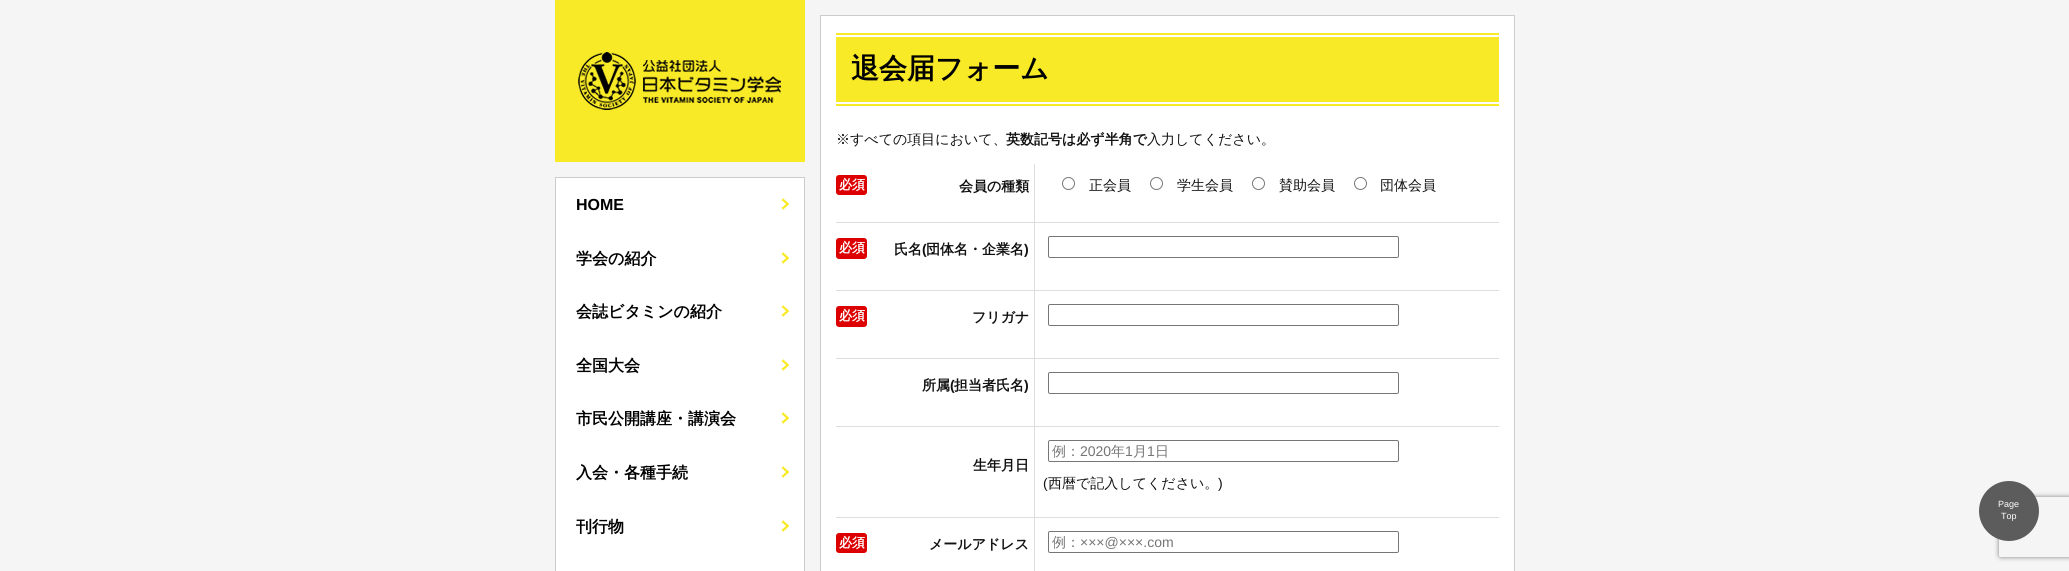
import math
import cairo


def use_color(cr, r, g, b):
  cr.set_source_rgb(r / 255, g / 255, b / 255)

def text(cr, x, y, s, family, size, color, bold=False, italic=False):
  cr.select_font_face(family, cairo.FONT_SLANT_ITALIC if italic else cairo.FONT_SLANT_NORMAL, cairo.FONT_WEIGHT_BOLD if bold else cairo.FONT_WEIGHT_NORMAL)
  cr.set_font_size(size)
  use_color(cr, *color)
  cr.move_to(x, y)
  cr.show_text(s)

def box(cr, x, y, w, h, *color):
  use_color(cr, *color)
  cr.rectangle(x, y, w, h)
  cr.fill()

def round_rect(cr, x, y, w, h, r):
  cr.new_sub_path()
  for i, (u, v) in enumerate([(x + w - r, y + h - r), (x + r, y + h - r), (x + r, y + r), (x + w - r, y + r)]):
    cr.arc(u, v, r, i * math.pi / 2, (i + 1) * math.pi / 2)
  cr.close_path()

def shadow(cr, x, y, w, h, r, blur, alpha):
  cr.push_group_with_content(cairo.CONTENT_ALPHA)
  cr.set_operator(cairo.OPERATOR_SOURCE)
  for i in range(15, -16, -2):
    e = blur * i / 6
    if min(w, h) + 2 * e > 0:
      cr.set_source_rgba(0, 0, 0, alpha * math.erfc((i - 1) / 8.5) / 2)
      round_rect(cr, x - e, y - e, w + 2 * e, h + 2 * e, max(0, min(r + e + blur * .6, min(w, h) / 2 + e)))
      cr.fill()
  cr.mask(cr.pop_group())

def picture(cr, path, x, y, w, h):
  cr.save()
  cr.set_source_surface(cairo.ImageSurface.create_from_png(path), x, y)
  cr.rectangle(x, y, w, h)
  cr.fill()
  cr.restore()

def draw(cr):
  use_color(cr, 245, 245, 245)
  cr.paint()
  box(cr, 555, 0, 250, 162, 249, 234, 39)
  picture(cr, "img_01.png", 578, 52, 203, 58)
  use_color(cr, 255, 255, 255)
  cr.rectangle(555.5, 177.5, 249, 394)
  cr.fill_preserve()
  use_color(cr, 204, 204, 204)
  cr.set_line_width(1)
  cr.stroke()
  picture(cr, "img_02.png", 781, 198, 8, 12)
  picture(cr, "img_02.png", 781, 252, 8, 12)
  picture(cr, "img_02.png", 781, 305, 8, 12)
  picture(cr, "img_02.png", 781, 359, 8, 12)
  picture(cr, "img_02.png", 781, 412, 8, 12)
  picture(cr, "img_02.png", 781, 466, 8, 12)
  picture(cr, "img_02.png", 781, 520, 8, 12)
  use_color(cr, 255, 255, 255)
  cr.rectangle(820.5, 15.5, 694, 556)
  cr.fill_preserve()
  use_color(cr, 204, 204, 204)
  cr.stroke()
  box(cr, 836, 33, 663, 73, 249, 234, 39)
  box(cr, 836, 35, 663, 2, 255, 255, 255)
  box(cr, 836, 102, 663, 2, 255, 255, 255)
  use_color(cr, 221, 0, 0)
  round_rect(cr, 836, 175, 31, 20, 3)
  cr.fill()
  cr.arc(1068.5, 183.5, 6, 0, 2 * math.pi)
  use_color(cr, 118, 118, 118)
  cr.stroke()
  cr.arc(1156.5, 183.5, 6, 0, 2 * math.pi)
  cr.stroke()
  cr.arc(1258.5, 183.5, 6, 0, 2 * math.pi)
  cr.stroke()
  cr.arc(1360.5, 183.5, 6, 0, 2 * math.pi)
  cr.stroke()
  box(cr, 836, 222, 663, 1, 221, 221, 221)
  use_color(cr, 221, 0, 0)
  round_rect(cr, 836, 238, 31, 21, 3)
  cr.fill()
  round_rect(cr, 1048.5, 236.5, 350, 21, 1.5)
  use_color(cr, 118, 118, 118)
  cr.stroke()
  box(cr, 836, 290, 663, 1, 221, 221, 221)
  use_color(cr, 221, 0, 0)
  round_rect(cr, 836, 306, 31, 21, 3)
  cr.fill()
  round_rect(cr, 1048.5, 304.5, 350, 21, 1.5)
  use_color(cr, 118, 118, 118)
  cr.stroke()
  box(cr, 836, 358, 663, 1, 221, 221, 221)
  round_rect(cr, 1048.5, 372.5, 350, 21, 1.5)
  use_color(cr, 118, 118, 118)
  cr.stroke()
  box(cr, 836, 426, 663, 1, 221, 221, 221)
  round_rect(cr, 1048.5, 440.5, 350, 21, 1.5)
  use_color(cr, 118, 118, 118)
  cr.stroke()
  box(cr, 836, 517, 663, 1, 221, 221, 221)
  use_color(cr, 221, 0, 0)
  round_rect(cr, 836, 533, 31, 20, 3)
  cr.fill()
  box(cr, 1034, 164, 1, 407, 221, 221, 221)
  round_rect(cr, 1048.5, 531.5, 350, 21, 1.5)
  use_color(cr, 118, 118, 118)
  cr.stroke()
  cr.save()
  cr.set_fill_rule(cairo.FILL_RULE_EVEN_ODD)
  cr.new_path()
  cr.move_to(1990, 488)
  cr.line_to(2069, 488)
  cr.line_to(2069, 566)
  cr.line_to(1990, 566)
  cr.close_path()
  cr.move_to(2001, 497)
  cr.line_to(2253, 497)
  cr.curve_to(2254, 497, 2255, 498, 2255, 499)
  cr.line_to(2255, 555)
  cr.curve_to(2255, 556, 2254, 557, 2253, 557)
  cr.line_to(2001, 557)
  cr.curve_to(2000, 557, 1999, 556, 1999, 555)
  cr.line_to(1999, 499)
  cr.curve_to(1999, 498, 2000, 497, 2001, 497)
  cr.close_path()
  cr.clip()
  use_color(cr, 128, 128, 128)
  shadow(cr, 1999, 497, 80, 60, 2, 2.5, 1)
  cr.restore()
  use_color(cr, 255, 255, 255)
  cr.arc(2009, 511, 30, 0, 2 * math.pi)
  cr.fill()
  cr.set_source_rgba(0, 0, 0, 0.64)
  cr.arc(2009, 511, 30, 0, 2 * math.pi)
  cr.fill()
  text(cr, 576, 210, "HOME", "Liberation Sans", 16, (0, 0, 0), bold=True)
  text(cr, 576, 264, "学会の紹介", "WenQuanYi Zen Hei", 16, (0, 0, 0), bold=True)
  text(cr, 576, 317, "会誌ビタミンの紹介", "WenQuanYi Zen Hei", 16, (0, 0, 0), bold=True)
  text(cr, 576, 371, "全国大会", "WenQuanYi Zen Hei", 16, (0, 0, 0), bold=True)
  text(cr, 576, 424, "市民公開講座・講演会", "WenQuanYi Zen Hei", 16, (0, 0, 0), bold=True)
  text(cr, 576, 478, "入会・各種手続", "WenQuanYi Zen Hei", 16, (0, 0, 0), bold=True)
  text(cr, 576, 532, "刊行物", "WenQuanYi Zen Hei", 16, (0, 0, 0), bold=True)
  text(cr, 851, 78, "退会届フォーム", "WenQuanYi Zen Hei", 28, (0, 0, 0), bold=True)
  text(cr, 836, 144, "※すべての項目において、", "WenQuanYi Zen Hei Medium", 14, (17, 17, 17))
  text(cr, 1006, 144, "英数記号は必ず半角で", "WenQuanYi Zen Hei", 14, (17, 17, 17), bold=True)
  text(cr, 1147, 144, "入力してください。", "WenQuanYi Zen Hei Medium", 14, (17, 17, 17))
  text(cr, 839, 189, "必須", "WenQuanYi Zen Hei", 13, (255, 255, 255), bold=True)
  text(cr, 959, 191, "会員の種類", "WenQuanYi Zen Hei", 14, (17, 17, 17), bold=True)
  text(cr, 1089, 190, "正会員", "WenQuanYi Zen Hei Medium", 14, (17, 17, 17))
  text(cr, 1177, 190, "学生会員", "WenQuanYi Zen Hei Medium", 14, (17, 17, 17))
  text(cr, 1279, 190, "賛助会員", "WenQuanYi Zen Hei Medium", 14, (17, 17, 17))
  text(cr, 1380, 190, "団体会員", "WenQuanYi Zen Hei Medium", 14, (17, 17, 17))
  text(cr, 839, 252, "必須", "WenQuanYi Zen Hei", 13, (255, 255, 255), bold=True)
  text(cr, 894, 254, "氏名", "WenQuanYi Zen Hei", 14, (17, 17, 17), bold=True)
  text(cr, 922, 254, "(", "Liberation Sans", 14, (17, 17, 17), bold=True)
  text(cr, 926, 254, "団体名・企業名", "WenQuanYi Zen Hei", 14, (17, 17, 17), bold=True)
  text(cr, 1024, 254, ")", "Liberation Sans", 14, (17, 17, 17), bold=True)
  text(cr, 839, 320, "必須", "WenQuanYi Zen Hei", 13, (255, 255, 255), bold=True)
  text(cr, 972, 322, "フリガナ", "WenQuanYi Zen Hei", 14, (17, 17, 17), bold=True)
  text(cr, 922, 390, "所属", "WenQuanYi Zen Hei", 14, (17, 17, 17), bold=True)
  text(cr, 950, 390, "(", "Liberation Sans", 14, (17, 17, 17), bold=True)
  text(cr, 954, 390, "担当者氏名", "WenQuanYi Zen Hei", 14, (17, 17, 17), bold=True)
  text(cr, 1024, 390, ")", "Liberation Sans", 14, (17, 17, 17), bold=True)
  text(cr, 973, 470, "生年月日", "WenQuanYi Zen Hei", 14, (17, 17, 17), bold=True)
  text(cr, 1052, 456, "例：", "WenQuanYi Zen Hei Medium", 14, (117, 117, 117))
  text(cr, 1080, 456, "2020", "Liberation Sans", 14, (117, 117, 117))
  text(cr, 1111, 456, "年", "WenQuanYi Zen Hei Medium", 14, (117, 117, 117))
  text(cr, 1125, 456, "1", "Liberation Sans", 14, (117, 117, 117))
  text(cr, 1133, 456, "月", "WenQuanYi Zen Hei Medium", 14, (117, 117, 117))
  text(cr, 1147, 456, "1", "Liberation Sans", 14, (117, 117, 117))
  text(cr, 1155, 456, "日", "WenQuanYi Zen Hei Medium", 14, (117, 117, 117))
  text(cr, 1043, 488, "(", "Liberation Sans", 14, (17, 17, 17))
  text(cr, 1048, 488, "西暦で記入してください。", "WenQuanYi Zen Hei Medium", 14, (17, 17, 17))
  text(cr, 1218, 488, ")", "Liberation Sans", 14, (17, 17, 17))
  text(cr, 839, 547, "必須", "WenQuanYi Zen Hei", 13, (255, 255, 255), bold=True)
  text(cr, 929, 549, "メールアドレス", "WenQuanYi Zen Hei", 14, (17, 17, 17), bold=True)
  text(cr, 1052, 547, "例：", "WenQuanYi Zen Hei Medium", 14, (117, 117, 117))
  text(cr, 1080, 547, "×××@×××.com", "Liberation Sans", 14, (117, 117, 117))
  text(cr, 1998, 507, "Page", "Liberation Sans", 9, (255, 255, 255))
  text(cr, 2001, 519, "Top", "Liberation Sans", 9, (255, 255, 255))


surface = cairo.ImageSurface(cairo.FORMAT_RGB24, 2069, 571)
cr = cairo.Context(surface)
options = cairo.FontOptions()
options.set_hint_metrics(cairo.HINT_METRICS_OFF)
options.set_hint_style(cairo.HINT_STYLE_NONE)
cr.set_font_options(options)
cr.set_miter_limit(4)
draw(cr)
surface.write_to_png("out.png")
